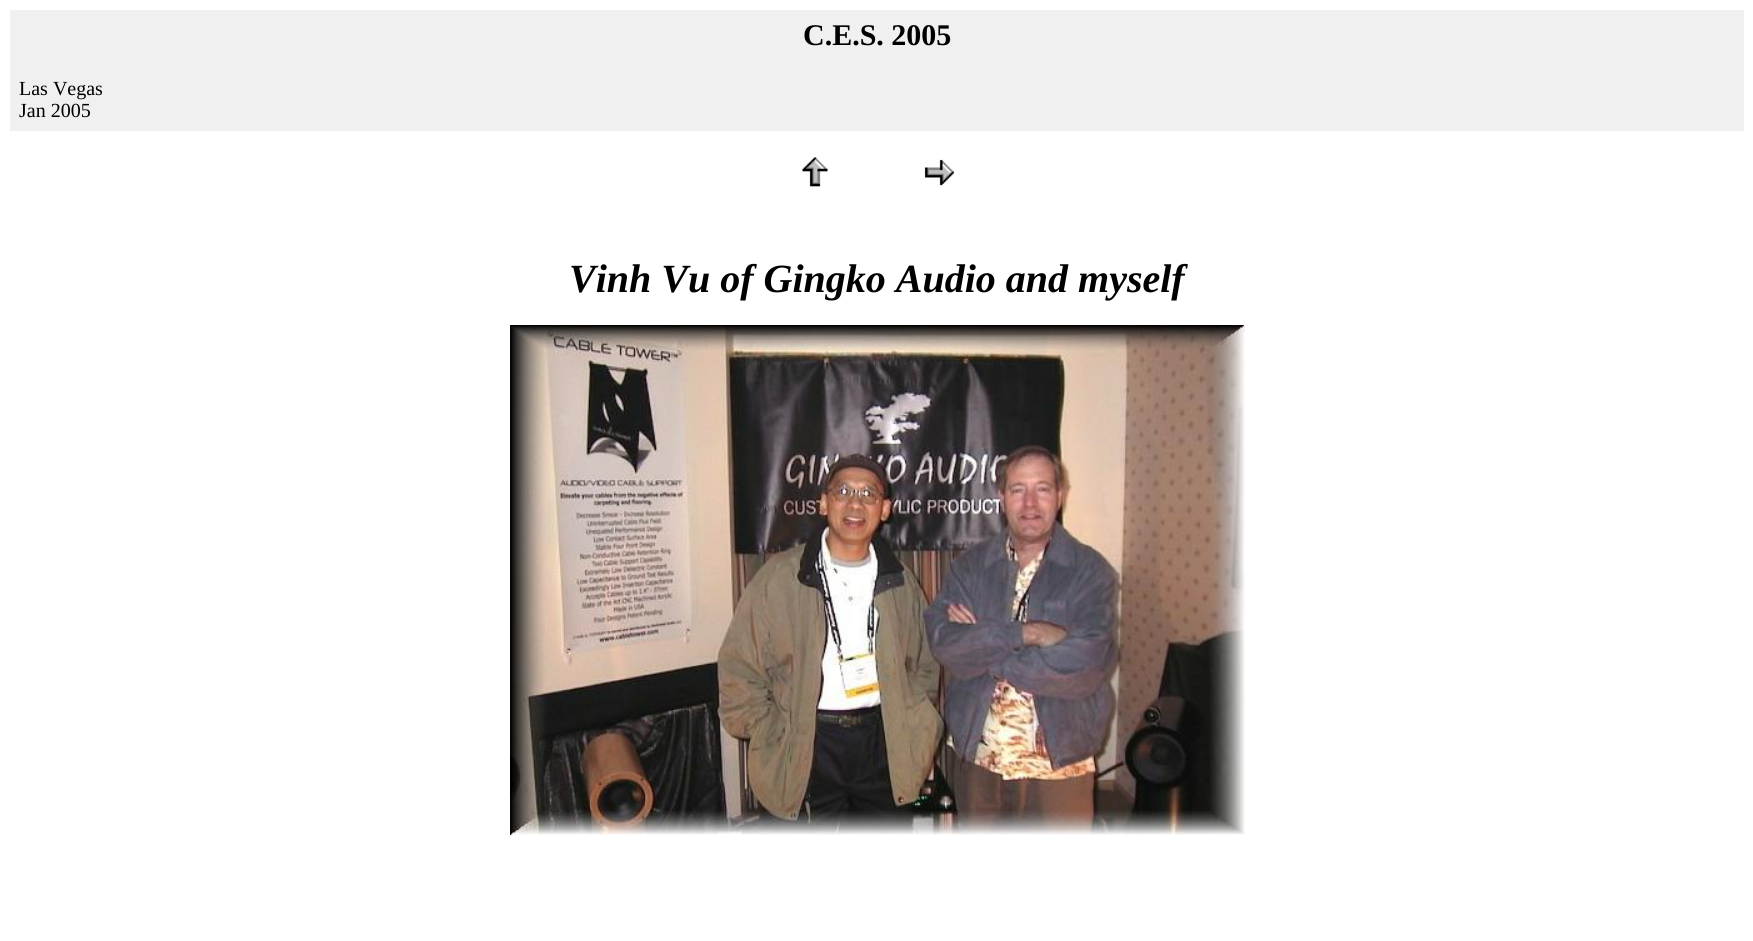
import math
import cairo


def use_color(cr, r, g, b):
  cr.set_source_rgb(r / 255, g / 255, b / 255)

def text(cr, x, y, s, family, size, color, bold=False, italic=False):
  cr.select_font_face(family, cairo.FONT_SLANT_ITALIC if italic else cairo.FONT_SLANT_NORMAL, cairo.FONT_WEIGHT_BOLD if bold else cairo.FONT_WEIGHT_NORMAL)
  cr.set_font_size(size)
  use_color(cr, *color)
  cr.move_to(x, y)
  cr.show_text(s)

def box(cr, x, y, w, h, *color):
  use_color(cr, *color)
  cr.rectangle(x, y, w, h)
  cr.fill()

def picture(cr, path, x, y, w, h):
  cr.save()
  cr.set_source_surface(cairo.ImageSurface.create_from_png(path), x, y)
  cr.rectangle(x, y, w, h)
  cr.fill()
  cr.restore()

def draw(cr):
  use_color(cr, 255, 255, 255)
  cr.paint()
  box(cr, 10, 10, 1734, 121, 240, 240, 240)
  picture(cr, "img_01.png", 802, 157, 26, 30)
  picture(cr, "img_02.png", 924, 159, 30, 27)
  picture(cr, "img_03.png", 510, 325, 735, 510)
  text(cr, 803, 45, "C.E.S. 2005", "Liberation Serif", 30, (0, 0, 0), bold=True)
  text(cr, 19, 95, "Las Vegas", "Liberation Serif", 20, (0, 0, 0))
  text(cr, 19, 117, "Jan 2005", "Liberation Serif", 20, (0, 0, 0))
  text(cr, 569, 292, "Vinh Vu of Gingko Audio and myself", "Liberation Serif", 40, (0, 0, 0), bold=True, italic=True)


surface = cairo.ImageSurface(cairo.FORMAT_RGB24, 1753, 941)
cr = cairo.Context(surface)
options = cairo.FontOptions()
options.set_hint_metrics(cairo.HINT_METRICS_OFF)
options.set_hint_style(cairo.HINT_STYLE_NONE)
cr.set_font_options(options)
cr.set_miter_limit(4)
draw(cr)
surface.write_to_png("out.png")
